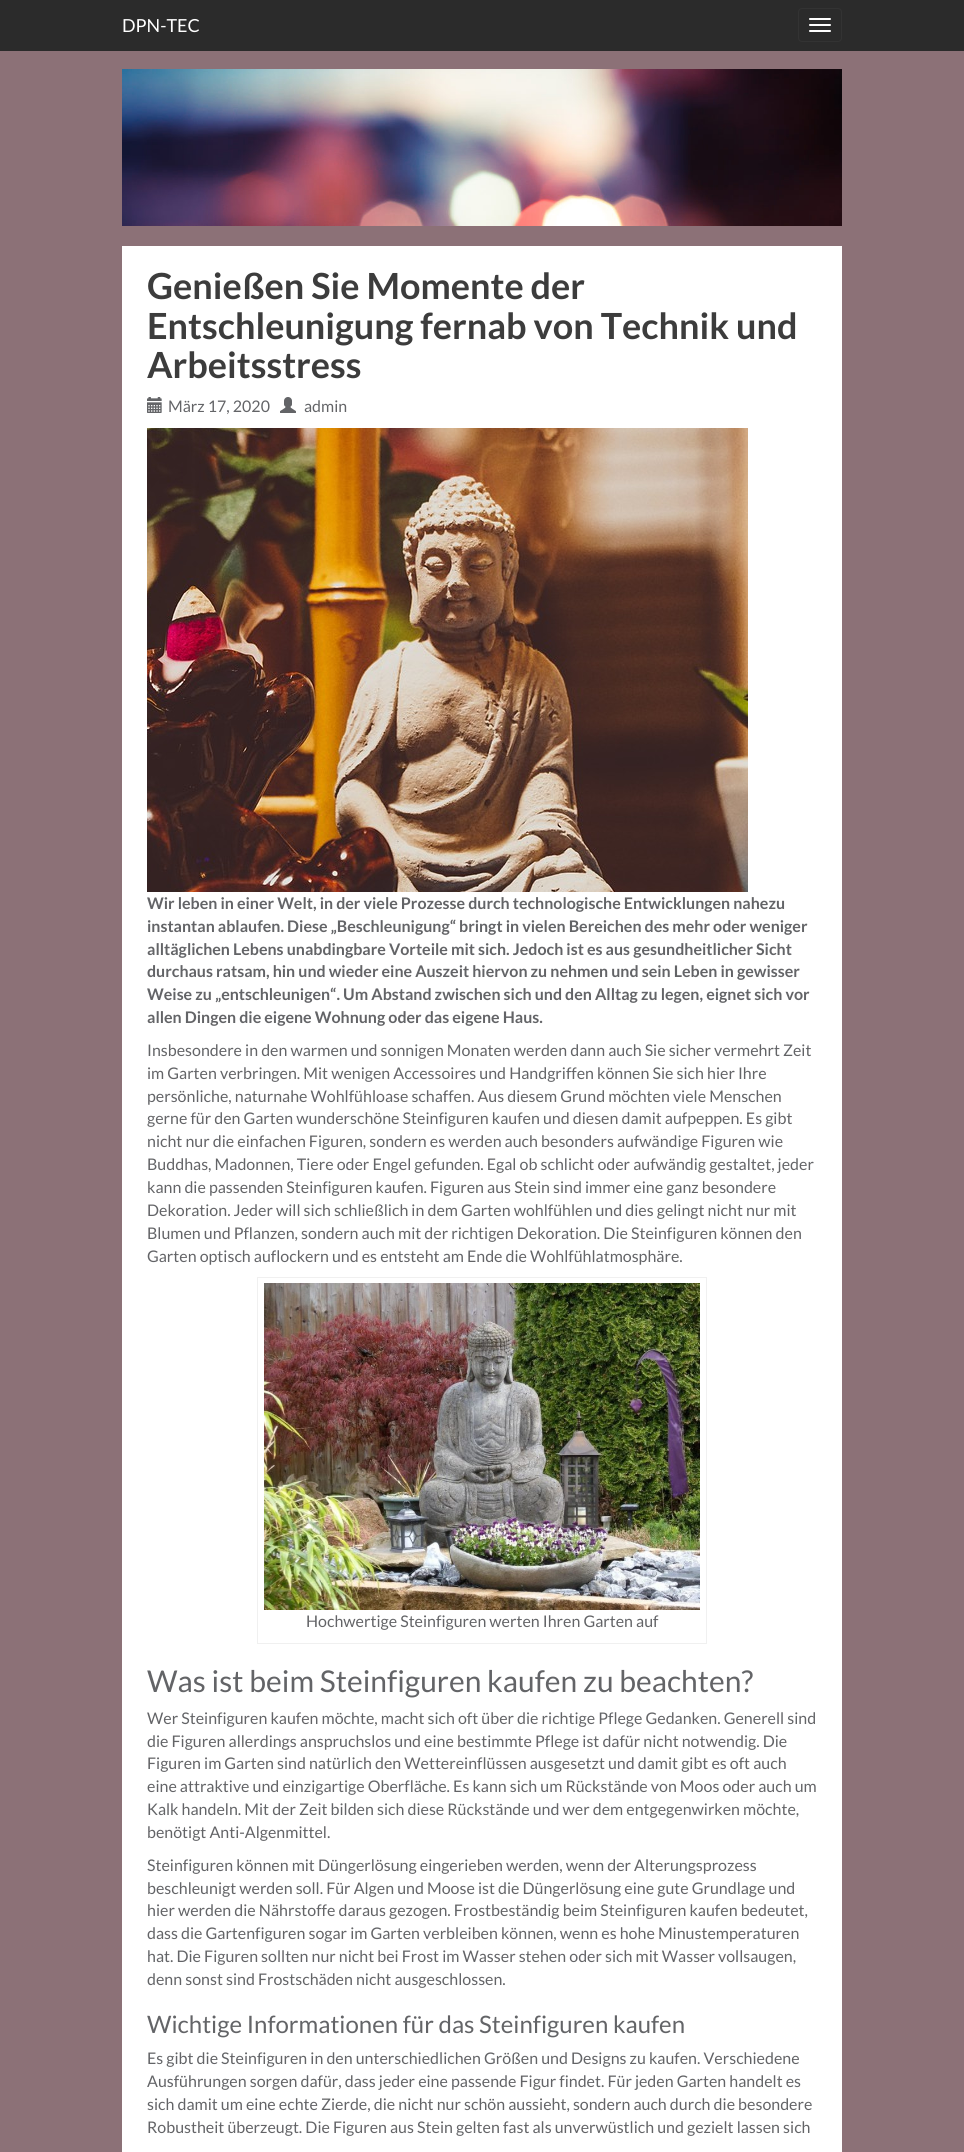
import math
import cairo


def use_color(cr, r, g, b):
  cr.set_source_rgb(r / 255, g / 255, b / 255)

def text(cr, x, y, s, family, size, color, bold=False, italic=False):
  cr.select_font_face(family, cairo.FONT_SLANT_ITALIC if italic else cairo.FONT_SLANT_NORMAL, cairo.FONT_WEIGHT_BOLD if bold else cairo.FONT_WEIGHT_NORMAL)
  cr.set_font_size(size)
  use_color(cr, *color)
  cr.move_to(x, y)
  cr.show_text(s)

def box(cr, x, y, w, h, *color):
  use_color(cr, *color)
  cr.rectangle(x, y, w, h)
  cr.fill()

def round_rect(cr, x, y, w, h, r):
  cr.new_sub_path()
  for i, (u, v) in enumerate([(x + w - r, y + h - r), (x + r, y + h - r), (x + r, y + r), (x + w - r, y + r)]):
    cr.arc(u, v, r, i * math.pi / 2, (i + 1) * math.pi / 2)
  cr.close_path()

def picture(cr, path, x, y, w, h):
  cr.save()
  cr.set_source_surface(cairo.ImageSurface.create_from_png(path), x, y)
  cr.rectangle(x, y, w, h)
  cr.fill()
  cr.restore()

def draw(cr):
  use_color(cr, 140, 113, 119)
  cr.paint()
  box(cr, 0, 0, 964, 51, 43, 43, 43)
  round_rect(cr, 798.5, 8.5, 43, 33, 3.5)
  use_color(cr, 51, 51, 51)
  cr.set_line_width(1)
  cr.stroke()
  use_color(cr, 255, 255, 255)
  round_rect(cr, 809, 18, 22, 2, 1)
  cr.fill()
  round_rect(cr, 809, 24, 22, 2, 1)
  cr.fill()
  round_rect(cr, 809, 30, 22, 2, 1)
  cr.fill()
  picture(cr, "img_01.png", 122, 69, 720, 157)
  box(cr, 122, 246, 720, 1906, 255, 255, 255)
  picture(cr, "img_02.png", 147, 397, 15, 16)
  picture(cr, "img_03.png", 280, 397, 16, 16)
  picture(cr, "img_04.png", 147, 428, 601, 464)
  cr.rectangle(257.5, 1277.5, 449, 366)
  use_color(cr, 240, 240, 240)
  cr.stroke()
  picture(cr, "img_05.png", 264, 1283, 436, 327)
  text(cr, 122, 32, "DPN-TEC", "Lato", 18, (255, 255, 255))
  text(cr, 147, 299, "Genießen Sie Momente der", "Lato", 36, (60, 60, 60), bold=True)
  text(cr, 147, 339, "Entschleunigung fernab von Technik und", "Lato", 36, (60, 60, 60), bold=True)
  text(cr, 147, 378, "Arbeitsstress", "Lato", 36, (60, 60, 60), bold=True)
  text(cr, 168, 412, "März 17, 2020", "Lato", 16, (99, 100, 103))
  text(cr, 304, 412, "admin", "Lato", 16, (99, 100, 103))
  text(cr, 147, 909, "Wir leben in einer Welt, in der viele Prozesse durch technologische Entwicklungen nahezu", "Lato", 16, (99, 100, 103), bold=True)
  text(cr, 147, 932, "instantan ablaufen. Diese „Beschleunigung“ bringt in vielen Bereichen des mehr oder weniger", "Lato", 16, (99, 100, 103), bold=True)
  text(cr, 147, 955, "alltäglichen Lebens unabdingbare Vorteile mit sich. Jedoch ist es aus gesundheitlicher Sicht", "Lato", 16, (99, 100, 103), bold=True)
  text(cr, 147, 977, "durchaus ratsam, hin und wieder eine Auszeit hiervon zu nehmen und sein Leben in gewisser", "Lato", 16, (99, 100, 103), bold=True)
  text(cr, 147, 1000, "Weise zu „entschleunigen“. Um Abstand zwischen sich und den Alltag zu legen, eignet sich vor", "Lato", 16, (99, 100, 103), bold=True)
  text(cr, 147, 1023, "allen Dingen die eigene Wohnung oder das eigene Haus.", "Lato", 16, (99, 100, 103), bold=True)
  text(cr, 147, 1056, "Insbesondere in den warmen und sonnigen Monaten werden dann auch Sie sicher vermehrt Zeit", "Lato", 16, (99, 100, 103))
  text(cr, 147, 1079, "im Garten verbringen. Mit wenigen Accessoires und Handgriffen können Sie sich hier Ihre", "Lato", 16, (99, 100, 103))
  text(cr, 147, 1102, "persönliche, naturnahe Wohlfühloase schaffen. Aus diesem Grund möchten viele Menschen", "Lato", 16, (99, 100, 103))
  text(cr, 147, 1124, "gerne für den Garten wunderschöne Steinfiguren kaufen und diesen damit aufpeppen. Es gibt", "Lato", 16, (99, 100, 103))
  text(cr, 147, 1147, "nicht nur die einfachen Figuren, sondern es werden auch besonders aufwändige Figuren wie", "Lato", 16, (99, 100, 103))
  text(cr, 147, 1170, "Buddhas, Madonnen, Tiere oder Engel gefunden. Egal ob schlicht oder aufwändig gestaltet, jeder", "Lato", 16, (99, 100, 103))
  text(cr, 147, 1193, "kann die passenden Steinfiguren kaufen. Figuren aus Stein sind immer eine ganz besondere", "Lato", 16, (99, 100, 103))
  text(cr, 147, 1216, "Dekoration. Jeder will sich schließlich in dem Garten wohlfühlen und dies gelingt nicht nur mit", "Lato", 16, (99, 100, 103))
  text(cr, 147, 1239, "Blumen und Pflanzen, sondern auch mit der richtigen Dekoration. Die Steinfiguren können den", "Lato", 16, (99, 100, 103))
  text(cr, 147, 1262, "Garten optisch auflockern und es entsteht am Ende die Wohlfühlatmosphäre.", "Lato", 16, (99, 100, 103))
  text(cr, 306, 1627, "Hochwertige Steinfiguren werten Ihren Garten auf", "Lato", 16, (99, 100, 103))
  text(cr, 147, 1692, "Was ist beim Steinfiguren kaufen zu beachten?", "Lato", 30, (99, 100, 103))
  text(cr, 147, 1724, "Wer Steinfiguren kaufen möchte, macht sich oft über die richtige Pflege Gedanken. Generell sind", "Lato", 16, (99, 100, 103))
  text(cr, 147, 1747, "die Figuren allerdings anspruchslos und eine bestimmte Pflege ist dafür nicht notwendig. Die", "Lato", 16, (99, 100, 103))
  text(cr, 147, 1769, "Figuren im Garten sind natürlich den Wettereinflüssen ausgesetzt und damit gibt es oft auch", "Lato", 16, (99, 100, 103))
  text(cr, 147, 1792, "eine attraktive und einzigartige Oberfläche. Es kann sich um Rückstände von Moos oder auch um", "Lato", 16, (99, 100, 103))
  text(cr, 147, 1815, "Kalk handeln. Mit der Zeit bilden sich diese Rückstände und wer dem entgegenwirken möchte,", "Lato", 16, (99, 100, 103))
  text(cr, 147, 1838, "benötigt Anti-Algenmittel.", "Lato", 16, (99, 100, 103))
  text(cr, 147, 1871, "Steinfiguren können mit Düngerlösung eingerieben werden, wenn der Alterungsprozess", "Lato", 16, (99, 100, 103))
  text(cr, 147, 1894, "beschleunigt werden soll. Für Algen und Moose ist die Düngerlösung eine gute Grundlage und", "Lato", 16, (99, 100, 103))
  text(cr, 147, 1916, "hier werden die Nährstoffe daraus gezogen. Frostbeständig beim Steinfiguren kaufen bedeutet,", "Lato", 16, (99, 100, 103))
  text(cr, 147, 1939, "dass die Gartenfiguren sogar im Garten verbleiben können, wenn es hohe Minustemperaturen", "Lato", 16, (99, 100, 103))
  text(cr, 147, 1962, "hat. Die Figuren sollten nur nicht bei Frost im Wasser stehen oder sich mit Wasser vollsaugen,", "Lato", 16, (99, 100, 103))
  text(cr, 147, 1985, "denn sonst sind Frostschäden nicht ausgeschlossen.", "Lato", 16, (99, 100, 103))
  text(cr, 147, 2033, "Wichtige Informationen für das Steinfiguren kaufen", "Lato", 24, (99, 100, 103))
  text(cr, 147, 2064, "Es gibt die Steinfiguren in den unterschiedlichen Größen und Designs zu kaufen. Verschiedene", "Lato", 16, (99, 100, 103))
  text(cr, 147, 2087, "Ausführungen sorgen dafür, dass jeder eine passende Figur findet. Für jeden Garten handelt es", "Lato", 16, (99, 100, 103))
  text(cr, 147, 2110, "sich damit um eine echte Zierde, die nicht nur schön aussieht, sondern auch durch die besondere", "Lato", 16, (99, 100, 103))
  text(cr, 147, 2133, "Robustheit überzeugt. Die Figuren aus Stein gelten fast als unverwüstlich und gezielt lassen sich", "Lato", 16, (99, 100, 103))


surface = cairo.ImageSurface(cairo.FORMAT_RGB24, 964, 2152)
cr = cairo.Context(surface)
options = cairo.FontOptions()
options.set_hint_metrics(cairo.HINT_METRICS_OFF)
options.set_hint_style(cairo.HINT_STYLE_NONE)
cr.set_font_options(options)
cr.set_miter_limit(4)
draw(cr)
surface.write_to_png("out.png")
